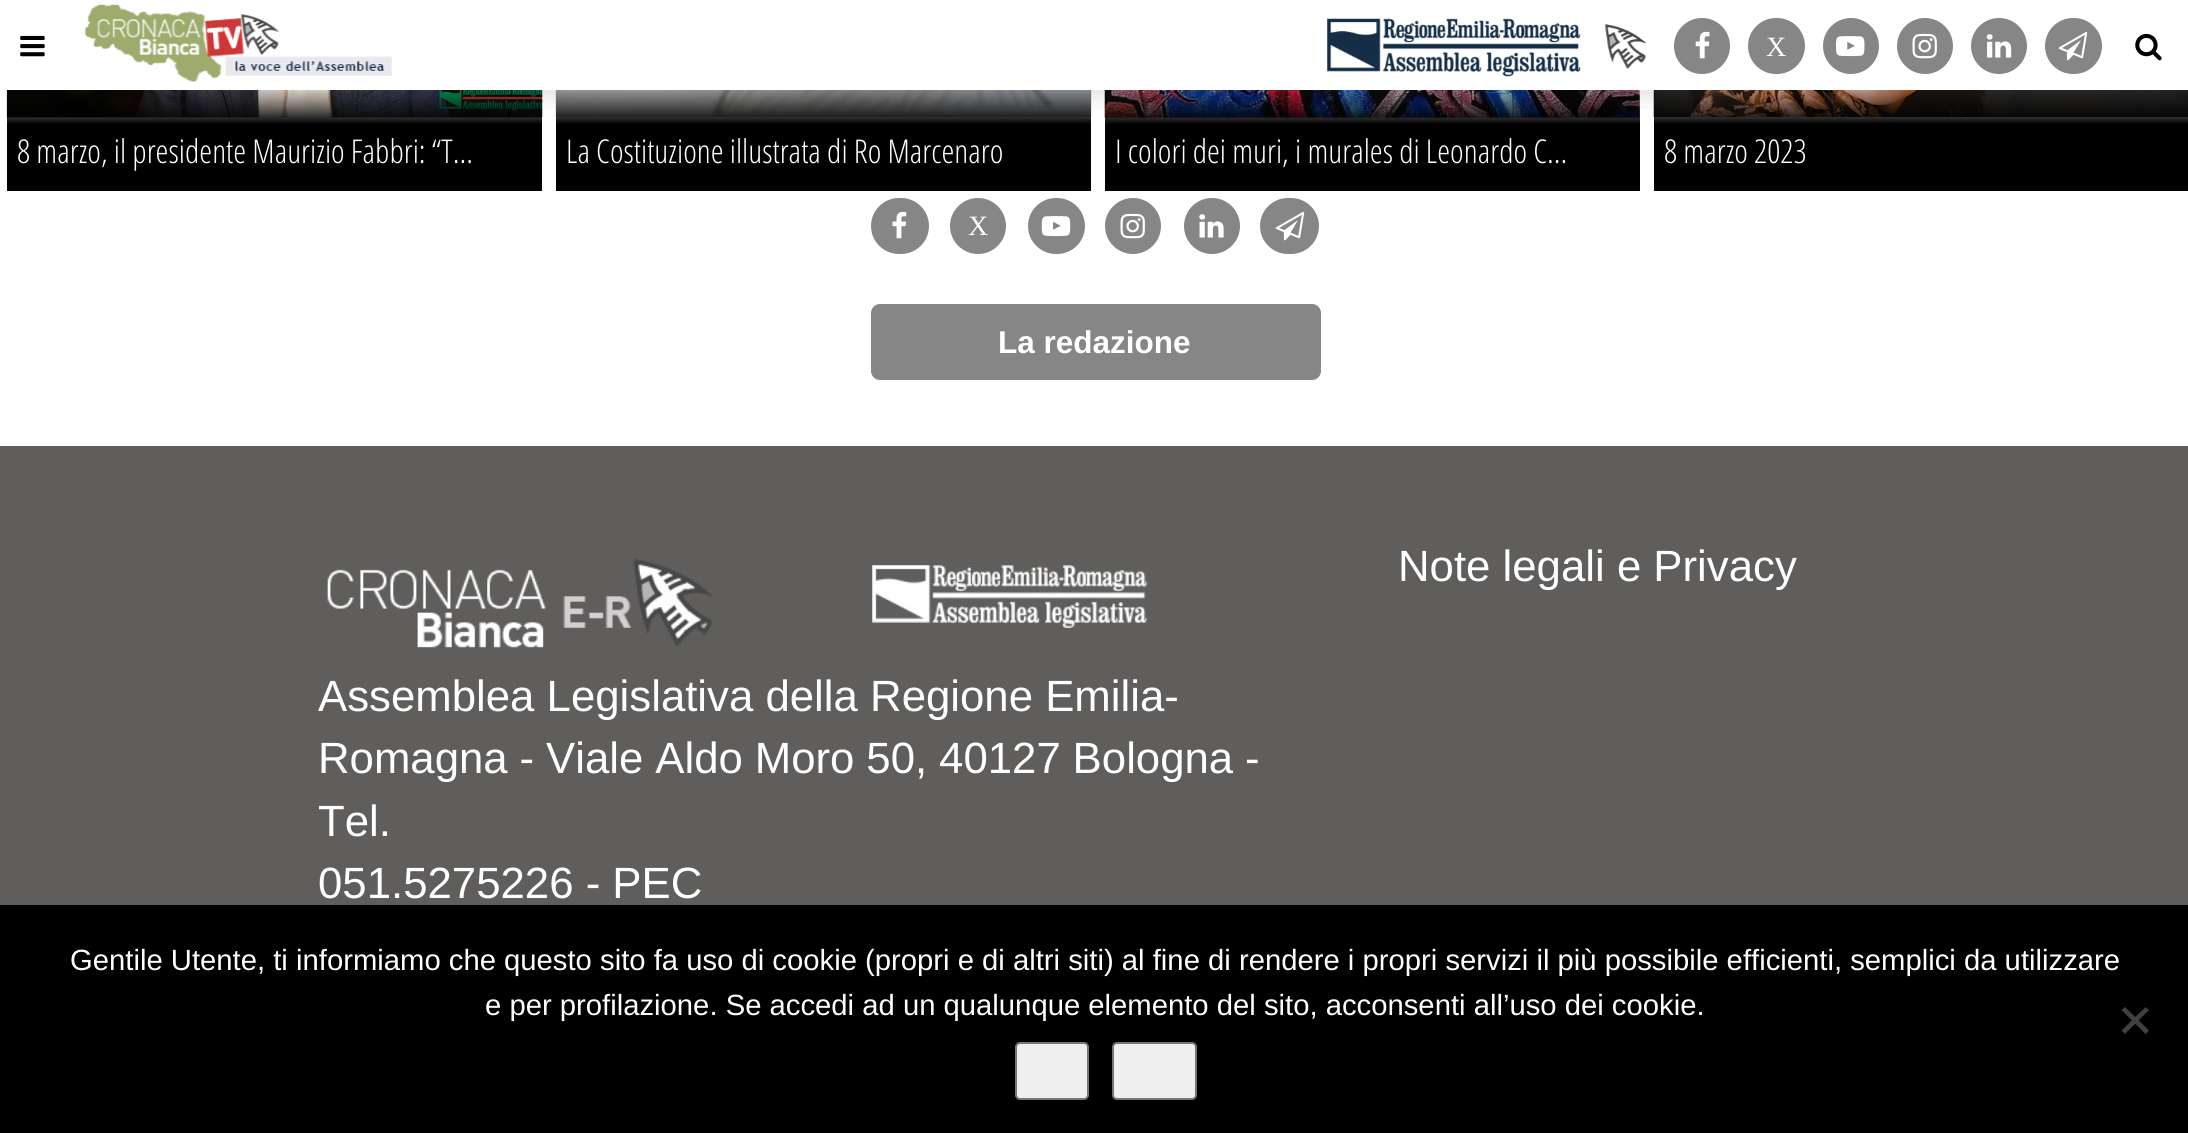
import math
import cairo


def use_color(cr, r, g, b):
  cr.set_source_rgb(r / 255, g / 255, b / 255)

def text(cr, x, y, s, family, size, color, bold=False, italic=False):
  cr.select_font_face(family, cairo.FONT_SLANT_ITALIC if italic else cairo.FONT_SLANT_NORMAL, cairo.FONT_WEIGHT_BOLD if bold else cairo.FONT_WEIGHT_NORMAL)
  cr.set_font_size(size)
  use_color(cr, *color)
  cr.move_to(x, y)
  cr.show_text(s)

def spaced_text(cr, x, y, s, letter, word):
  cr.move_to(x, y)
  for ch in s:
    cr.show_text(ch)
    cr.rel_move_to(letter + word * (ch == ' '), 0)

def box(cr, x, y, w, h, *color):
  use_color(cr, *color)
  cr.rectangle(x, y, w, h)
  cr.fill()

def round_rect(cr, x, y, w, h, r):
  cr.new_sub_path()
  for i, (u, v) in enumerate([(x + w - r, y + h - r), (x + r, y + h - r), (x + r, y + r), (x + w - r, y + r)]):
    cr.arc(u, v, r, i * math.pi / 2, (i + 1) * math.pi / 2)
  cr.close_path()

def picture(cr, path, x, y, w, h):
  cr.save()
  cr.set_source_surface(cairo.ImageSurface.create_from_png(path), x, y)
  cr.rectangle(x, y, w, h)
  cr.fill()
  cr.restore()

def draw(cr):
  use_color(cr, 255, 255, 255)
  cr.paint()
  picture(cr, "img_01.png", 20, 35, 25, 22)
  picture(cr, "img_02.png", 85, 4, 307, 78)
  picture(cr, "img_03.png", 1327, 18, 254, 59)
  picture(cr, "img_04.png", 1604, 24, 43, 45)
  use_color(cr, 134, 134, 134)
  cr.arc(1702, 46, 28, 0, 2 * math.pi)
  cr.fill()
  picture(cr, "img_05.png", 1695, 31, 15, 28)
  round_rect(cr, 1748, 18, 57, 56, 28)
  cr.fill()
  cr.arc(1851, 46, 28, 0, 2 * math.pi)
  cr.fill()
  picture(cr, "img_06.png", 1836, 36, 29, 21)
  cr.arc(1925, 46, 28, 0, 2 * math.pi)
  cr.fill()
  picture(cr, "img_07.png", 1912, 33, 25, 26)
  cr.arc(1999, 46, 28, 0, 2 * math.pi)
  cr.fill()
  picture(cr, "img_08.png", 1986, 34, 26, 24)
  round_rect(cr, 2045, 18, 57, 56, 28)
  cr.fill()
  picture(cr, "img_09.png", 2058, 31, 30, 30)
  picture(cr, "img_10.png", 2135, 33, 27, 28)
  picture(cr, "img_12.png", 6, 90, 537, 28)
  gradient = cairo.LinearGradient(275, 88, 275, 191)
  gradient.add_color_stop_rgba(0, 0, 0, 0, 0)
  gradient.add_color_stop_rgba(0.35, 0, 0, 0, 1)
  cr.set_source(gradient)
  cr.rectangle(7, 90, 535, 101)
  cr.fill()
  picture(cr, "img_13.png", 555, 90, 537, 27)
  gradient = cairo.LinearGradient(824, 88, 824, 191)
  gradient.add_color_stop_rgba(0, 0, 0, 0, 0)
  gradient.add_color_stop_rgba(0.35, 0, 0, 0, 1)
  cr.set_source(gradient)
  cr.rectangle(556, 90, 535, 101)
  cr.fill()
  picture(cr, "img_14.png", 1104, 90, 536, 28)
  gradient = cairo.LinearGradient(1373, 88, 1373, 191)
  gradient.add_color_stop_rgba(0, 0, 0, 0, 0)
  gradient.add_color_stop_rgba(0.35, 0, 0, 0, 1)
  cr.set_source(gradient)
  cr.rectangle(1105, 90, 535, 101)
  cr.fill()
  picture(cr, "img_15.png", 1653, 90, 535, 27)
  gradient = cairo.LinearGradient(1922, 88, 1922, 191)
  gradient.add_color_stop_rgba(0, 0, 0, 0, 0)
  gradient.add_color_stop_rgba(0.35, 0, 0, 0, 1)
  cr.set_source(gradient)
  cr.rectangle(1654, 90, 534, 101)
  cr.fill()
  picture(cr, "img_11.png", 156, 90, 1761, 19)
  use_color(cr, 134, 134, 134)
  round_rect(cr, 871, 198, 58, 56, 28)
  cr.fill()
  picture(cr, "img_16.png", 892, 211, 15, 28)
  cr.arc(978, 226, 28, 0, 2 * math.pi)
  cr.fill()
  round_rect(cr, 1028, 198, 57, 56, 28)
  cr.fill()
  picture(cr, "img_17.png", 1041, 216, 30, 21)
  cr.arc(1133, 226, 28, 0, 2 * math.pi)
  cr.fill()
  picture(cr, "img_07.png", 1120, 213, 25, 26)
  cr.arc(1212, 226, 28, 0, 2 * math.pi)
  cr.fill()
  picture(cr, "img_18.png", 1199, 214, 25, 24)
  round_rect(cr, 1260, 198, 59, 56, 28)
  cr.fill()
  picture(cr, "img_09.png", 1275, 211, 30, 30)
  round_rect(cr, 871, 304, 450, 76, 9)
  cr.fill()
  box(cr, 0, 446, 2188, 459, 95, 94, 92)
  picture(cr, "img_19.png", 327, 558, 389, 90)
  picture(cr, "img_20.png", 871, 565, 277, 63)
  box(cr, 0, 905, 2188, 228, 0, 0, 0)
  use_color(cr, 64, 64, 64)
  cr.new_path()
  cr.move_to(2145.5, 1007)
  cr.line_to(2149, 1010)
  cr.line_to(2125, 1034)
  cr.line_to(2121.5, 1030.5)
  cr.close_path()
  cr.fill()
  cr.new_path()
  cr.move_to(2121.5, 1010)
  cr.line_to(2125, 1007)
  cr.line_to(2149, 1030.5)
  cr.line_to(2145.5, 1034)
  cr.close_path()
  cr.fill()
  use_color(cr, 239, 239, 239)
  round_rect(cr, 1016, 1043, 72, 56, 4)
  cr.fill_preserve()
  use_color(cr, 118, 118, 118)
  cr.stroke()
  use_color(cr, 239, 239, 239)
  round_rect(cr, 1113, 1043, 83, 56, 4)
  cr.fill_preserve()
  use_color(cr, 118, 118, 118)
  cr.stroke()
  text(cr, 1766, 56, "X", "Liberation Serif", 28, (255, 255, 255))
  text(cr, 17, 163, "8 marzo, il presidente Maurizio Fabbri: “T...", "Open Sans Condensed Light", 32.8, (255, 255, 255))
  text(cr, 566, 163, "La Costituzione illustrata di Ro Marcenaro", "Open Sans Condensed Light", 32.8, (255, 255, 255))
  text(cr, 1115, 163, "I colori dei muri, i murales di Leonardo C...", "Open Sans Condensed Light", 32.8, (255, 255, 255))
  text(cr, 1664, 163, "8 marzo 2023", "Open Sans Condensed Light", 32.8, (255, 255, 255))
  text(cr, 968, 235, "X", "Liberation Serif", 28, (255, 255, 255))
  text(cr, 998, 353, "La redazione", "Liberation Sans", 31.5, (255, 255, 255), bold=True)
  text(cr, 1398, 581, "Note legali e Privacy", "Liberation Sans", 43.75, (255, 255, 255))
  text(cr, 318, 711, "Assemblea Legislativa della Regione Emilia-", "Liberation Sans", 43.75, (255, 255, 255))
  spaced_text(cr, 318, 773, "Romagna - Viale Aldo Moro 50, 40127 Bologna -", 0, -0.25)
  text(cr, 318, 836, "Tel.", "Liberation Sans", 43.75, (255, 255, 255))
  text(cr, 318, 898, "051.5275226 - PEC", "Liberation Sans", 43.75, (255, 255, 255))
  text(cr, 70, 970, "Gentile Utente, ti informiamo che questo sito fa uso di cookie (propri e di altri siti) al fine di rendere i propri servizi il più possibile efficienti, semplici da utilizzare", "Liberation Sans", 29.25, (255, 255, 255))
  text(cr, 485, 1015, "e per profilazione. Se accedi ad un qualunque elemento del sito, acconsenti all’uso dei cookie.", "Liberation Sans", 29.25, (255, 255, 255))


surface = cairo.ImageSurface(cairo.FORMAT_RGB24, 2188, 1133)
cr = cairo.Context(surface)
options = cairo.FontOptions()
options.set_hint_metrics(cairo.HINT_METRICS_OFF)
options.set_hint_style(cairo.HINT_STYLE_NONE)
cr.set_font_options(options)
cr.set_miter_limit(4)
draw(cr)
surface.write_to_png("out.png")
